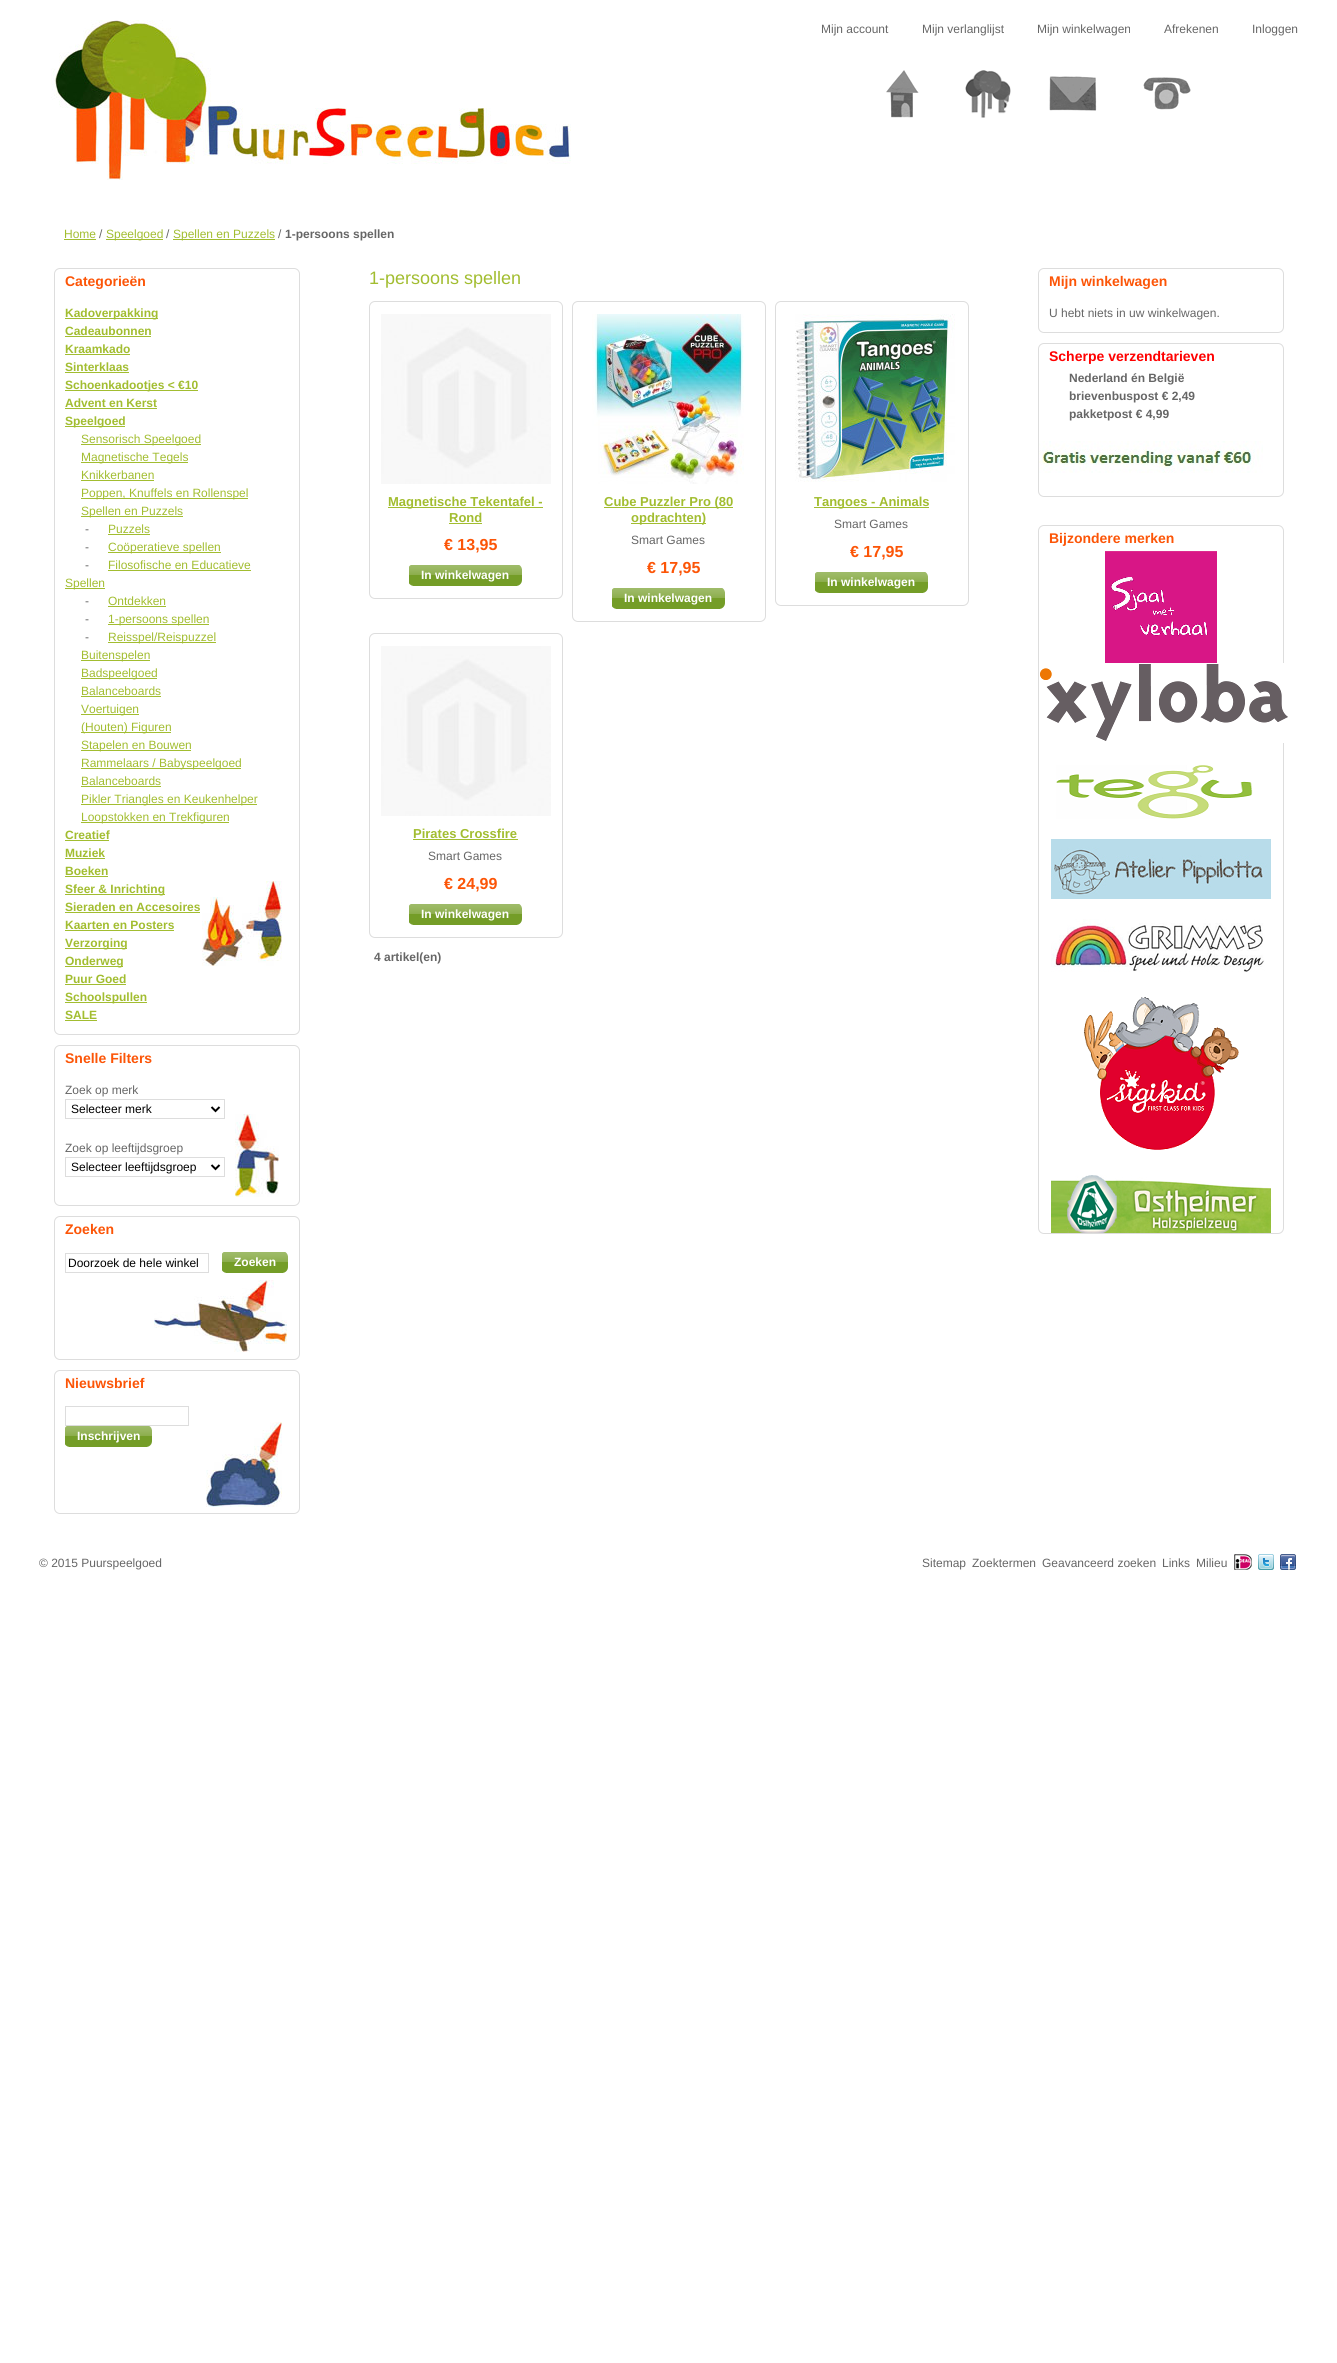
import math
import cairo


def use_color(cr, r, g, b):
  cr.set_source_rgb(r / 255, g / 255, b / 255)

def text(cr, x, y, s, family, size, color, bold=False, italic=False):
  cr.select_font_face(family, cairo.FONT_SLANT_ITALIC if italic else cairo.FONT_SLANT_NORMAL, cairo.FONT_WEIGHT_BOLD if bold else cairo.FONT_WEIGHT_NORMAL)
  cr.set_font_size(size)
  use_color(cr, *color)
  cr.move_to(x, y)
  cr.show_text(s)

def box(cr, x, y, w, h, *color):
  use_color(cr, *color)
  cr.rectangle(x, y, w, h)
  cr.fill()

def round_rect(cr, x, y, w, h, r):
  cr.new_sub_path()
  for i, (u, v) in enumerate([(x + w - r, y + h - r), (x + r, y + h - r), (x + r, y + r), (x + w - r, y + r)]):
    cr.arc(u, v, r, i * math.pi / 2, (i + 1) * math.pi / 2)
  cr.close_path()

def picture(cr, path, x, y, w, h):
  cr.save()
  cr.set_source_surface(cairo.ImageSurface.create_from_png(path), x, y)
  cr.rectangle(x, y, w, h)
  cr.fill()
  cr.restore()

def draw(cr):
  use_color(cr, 255, 255, 255)
  cr.paint()
  picture(cr, "img_01.png", 51, 20, 520, 160)
  picture(cr, "img_02.png", 886, 70, 33, 48)
  picture(cr, "img_03.png", 965, 70, 46, 48)
  picture(cr, "img_04.png", 1049, 76, 48, 35)
  picture(cr, "img_05.png", 1143, 77, 48, 33)
  box(cr, 64, 239, 32, 1, 162, 189, 48)
  box(cr, 106, 239, 57, 1, 162, 189, 48)
  box(cr, 173, 239, 102, 1, 162, 189, 48)
  picture(cr, "img_06.png", 202, 881, 80, 85)
  round_rect(cr, 54.5, 268.5, 245, 766, 5.5)
  use_color(cr, 221, 221, 221)
  cr.set_line_width(1)
  cr.stroke()
  box(cr, 65, 318, 93, 1, 162, 189, 48)
  box(cr, 65, 336, 86, 1, 162, 189, 48)
  box(cr, 65, 354, 65, 1, 162, 189, 48)
  box(cr, 65, 372, 64, 1, 162, 189, 48)
  box(cr, 65, 390, 133, 1, 162, 189, 48)
  box(cr, 65, 408, 92, 1, 162, 189, 48)
  box(cr, 65, 426, 60, 1, 162, 189, 48)
  box(cr, 81, 444, 120, 1, 162, 189, 48)
  box(cr, 81, 462, 107, 1, 162, 189, 48)
  box(cr, 81, 480, 73, 1, 162, 189, 48)
  box(cr, 81, 498, 167, 1, 162, 189, 48)
  box(cr, 81, 516, 102, 1, 162, 189, 48)
  box(cr, 108, 534, 42, 1, 162, 189, 48)
  box(cr, 108, 552, 113, 1, 162, 189, 48)
  box(cr, 108, 570, 143, 1, 162, 189, 48)
  box(cr, 65, 588, 40, 1, 162, 189, 48)
  box(cr, 108, 606, 58, 1, 162, 189, 48)
  box(cr, 108, 624, 101, 1, 162, 189, 48)
  box(cr, 108, 642, 108, 1, 162, 189, 48)
  box(cr, 81, 660, 69, 1, 162, 189, 48)
  box(cr, 81, 678, 76, 1, 162, 189, 48)
  box(cr, 81, 696, 80, 1, 162, 189, 48)
  box(cr, 81, 714, 58, 1, 162, 189, 48)
  box(cr, 81, 732, 90, 1, 162, 189, 48)
  box(cr, 81, 750, 110, 1, 162, 189, 48)
  box(cr, 81, 768, 160, 1, 162, 189, 48)
  box(cr, 81, 786, 80, 1, 162, 189, 48)
  box(cr, 81, 804, 176, 1, 162, 189, 48)
  box(cr, 81, 822, 148, 1, 162, 189, 48)
  box(cr, 65, 840, 44, 1, 162, 189, 48)
  box(cr, 65, 858, 40, 1, 162, 189, 48)
  box(cr, 65, 876, 43, 1, 162, 189, 48)
  box(cr, 65, 894, 100, 1, 162, 189, 48)
  box(cr, 65, 912, 135, 1, 162, 189, 48)
  box(cr, 65, 930, 109, 1, 162, 189, 48)
  box(cr, 65, 948, 62, 1, 162, 189, 48)
  box(cr, 65, 966, 58, 1, 162, 189, 48)
  box(cr, 65, 984, 61, 1, 162, 189, 48)
  box(cr, 65, 1002, 82, 1, 162, 189, 48)
  box(cr, 65, 1020, 32, 1, 162, 189, 48)
  picture(cr, "img_07.png", 235, 1114, 44, 83)
  round_rect(cr, 54.5, 1045.5, 245, 160, 5.5)
  use_color(cr, 221, 221, 221)
  cr.stroke()
  cr.rectangle(65.5, 1099.5, 159, 19)
  cr.stroke()
  cr.new_path()
  cr.move_to(211.5, 1107)
  cr.line_to(215.5, 1111)
  cr.line_to(219.5, 1107)
  use_color(cr, 0, 0, 0)
  cr.set_line_width(2)
  cr.stroke()
  cr.rectangle(65.5, 1157.5, 159, 19)
  use_color(cr, 221, 221, 221)
  cr.set_line_width(1)
  cr.stroke()
  cr.new_path()
  cr.move_to(211.5, 1165)
  cr.line_to(215.5, 1169)
  cr.line_to(219.5, 1165)
  use_color(cr, 0, 0, 0)
  cr.set_line_width(2)
  cr.stroke()
  picture(cr, "img_08.png", 154, 1280, 133, 72)
  round_rect(cr, 54.5, 1216.5, 245, 143, 5.5)
  use_color(cr, 221, 221, 221)
  cr.set_line_width(1)
  cr.stroke()
  cr.rectangle(65.5, 1253.5, 143, 19)
  cr.stroke()
  picture(cr, "img_09.png", 222, 1252, 8, 21)
  picture(cr, "img_10.png", 230, 1252, 58, 21)
  picture(cr, "img_11.png", 206, 1422, 76, 85)
  round_rect(cr, 54.5, 1370.5, 245, 143, 5.5)
  cr.stroke()
  cr.rectangle(65.5, 1406.5, 123, 19)
  cr.stroke()
  picture(cr, "img_09.png", 65, 1426, 8, 21)
  picture(cr, "img_12.png", 73, 1426, 79, 21)
  round_rect(cr, 369.5, 301.5, 193, 297, 5.5)
  cr.stroke()
  picture(cr, "img_13.png", 381, 314, 170, 170)
  box(cr, 388, 507, 155, 1, 162, 189, 48)
  box(cr, 449, 523, 33, 1, 162, 189, 48)
  picture(cr, "img_14.png", 409, 565, 8, 21)
  picture(cr, "img_15.png", 417, 565, 105, 21)
  round_rect(cr, 572.5, 301.5, 193, 320, 5.5)
  use_color(cr, 221, 221, 221)
  cr.stroke()
  picture(cr, "img_16.png", 592, 314, 152, 170)
  box(cr, 604, 507, 129, 1, 162, 189, 48)
  box(cr, 631, 523, 75, 1, 162, 189, 48)
  picture(cr, "img_14.png", 612, 588, 8, 21)
  picture(cr, "img_15.png", 620, 588, 105, 21)
  round_rect(cr, 775.5, 301.5, 193, 304, 5.5)
  use_color(cr, 221, 221, 221)
  cr.stroke()
  picture(cr, "img_17.png", 795, 314, 160, 168)
  box(cr, 814, 507, 115, 1, 162, 189, 48)
  picture(cr, "img_14.png", 815, 572, 8, 21)
  picture(cr, "img_15.png", 823, 572, 105, 21)
  round_rect(cr, 369.5, 633.5, 193, 304, 5.5)
  use_color(cr, 221, 221, 221)
  cr.stroke()
  picture(cr, "img_13.png", 381, 646, 170, 170)
  box(cr, 413, 839, 105, 1, 162, 189, 48)
  picture(cr, "img_14.png", 409, 904, 8, 21)
  picture(cr, "img_15.png", 417, 904, 105, 21)
  round_rect(cr, 1038.5, 268.5, 245, 64, 5.5)
  use_color(cr, 221, 221, 221)
  cr.stroke()
  round_rect(cr, 1038.5, 343.5, 245, 153, 5.5)
  cr.stroke()
  picture(cr, "img_18.png", 1039, 441, 224, 32)
  round_rect(cr, 1038.5, 525.5, 245, 708, 5.5)
  cr.stroke()
  picture(cr, "img_19.png", 1105, 551, 112, 112)
  picture(cr, "img_20.png", 1040, 663, 248, 80)
  picture(cr, "img_21.png", 1056, 765, 197, 54)
  picture(cr, "img_22.png", 1051, 839, 220, 60)
  picture(cr, "img_23.png", 1051, 919, 214, 53)
  picture(cr, "img_24.png", 1083, 997, 156, 153)
  picture(cr, "img_25.png", 1051, 1175, 220, 58)
  picture(cr, "img_26.png", 1234, 1554, 18, 16)
  picture(cr, "img_27.png", 1258, 1554, 16, 16)
  picture(cr, "img_28.png", 1280, 1554, 16, 16)
  text(cr, 821, 33, "Mijn account", "Liberation Sans", 12, (102, 102, 102))
  text(cr, 922, 33, "Mijn verlanglijst", "Liberation Sans", 12, (102, 102, 102))
  text(cr, 1037, 33, "Mijn winkelwagen", "Liberation Sans", 12, (102, 102, 102))
  text(cr, 1164, 33, "Afrekenen", "Liberation Sans", 12, (102, 102, 102))
  text(cr, 1252, 33, "Inloggen", "Liberation Sans", 12, (102, 102, 102))
  text(cr, 64, 238, "Home", "Liberation Sans", 12, (162, 189, 48))
  text(cr, 99, 238, "/", "Liberation Sans", 12, (102, 102, 102))
  text(cr, 106, 238, "Speelgoed", "Liberation Sans", 12, (162, 189, 48))
  text(cr, 166, 238, "/", "Liberation Sans", 12, (102, 102, 102))
  text(cr, 173, 238, "Spellen en Puzzels", "Liberation Sans", 12, (162, 189, 48))
  text(cr, 278, 238, "/", "Liberation Sans", 12, (102, 102, 102))
  text(cr, 285, 238, "1-persoons spellen", "Liberation Sans", 12, (102, 102, 102), bold=True)
  text(cr, 65, 286, "Categorieën", "Liberation Sans", 14, (252, 85, 7), bold=True)
  text(cr, 65, 317, "Kadoverpakking", "Liberation Sans", 12, (162, 189, 48), bold=True)
  text(cr, 65, 335, "Cadeaubonnen", "Liberation Sans", 12, (162, 189, 48), bold=True)
  text(cr, 65, 353, "Kraamkado", "Liberation Sans", 12, (162, 189, 48), bold=True)
  text(cr, 65, 371, "Sinterklaas", "Liberation Sans", 12, (162, 189, 48), bold=True)
  text(cr, 65, 389, "Schoenkadootjes < €10", "Liberation Sans", 12, (162, 189, 48), bold=True)
  text(cr, 65, 407, "Advent en Kerst", "Liberation Sans", 12, (162, 189, 48), bold=True)
  text(cr, 65, 425, "Speelgoed", "Liberation Sans", 12, (162, 189, 48), bold=True)
  text(cr, 81, 443, "Sensorisch Speelgoed", "Liberation Sans", 12, (162, 189, 48))
  text(cr, 81, 461, "Magnetische Tegels", "Liberation Sans", 12, (162, 189, 48))
  text(cr, 81, 479, "Knikkerbanen", "Liberation Sans", 12, (162, 189, 48))
  text(cr, 81, 497, "Poppen, Knuffels en Rollenspel", "Liberation Sans", 12, (162, 189, 48))
  text(cr, 81, 515, "Spellen en Puzzels", "Liberation Sans", 12, (162, 189, 48))
  text(cr, 85, 533, "-", "Liberation Sans", 12, (102, 102, 102))
  text(cr, 108, 533, "Puzzels", "Liberation Sans", 12, (162, 189, 48))
  text(cr, 85, 551, "-", "Liberation Sans", 12, (102, 102, 102))
  text(cr, 108, 551, "Coöperatieve spellen", "Liberation Sans", 12, (162, 189, 48))
  text(cr, 85, 569, "-", "Liberation Sans", 12, (102, 102, 102))
  text(cr, 108, 569, "Filosofische en Educatieve", "Liberation Sans", 12, (162, 189, 48))
  text(cr, 65, 587, "Spellen", "Liberation Sans", 12, (162, 189, 48))
  text(cr, 85, 605, "-", "Liberation Sans", 12, (102, 102, 102))
  text(cr, 108, 605, "Ontdekken", "Liberation Sans", 12, (162, 189, 48))
  text(cr, 85, 623, "-", "Liberation Sans", 12, (102, 102, 102))
  text(cr, 108, 623, "1-persoons spellen", "Liberation Sans", 12, (162, 189, 48))
  text(cr, 85, 641, "-", "Liberation Sans", 12, (102, 102, 102))
  text(cr, 108, 641, "Reisspel/Reispuzzel", "Liberation Sans", 12, (162, 189, 48))
  text(cr, 81, 659, "Buitenspelen", "Liberation Sans", 12, (162, 189, 48))
  text(cr, 81, 677, "Badspeelgoed", "Liberation Sans", 12, (162, 189, 48))
  text(cr, 81, 695, "Balanceboards", "Liberation Sans", 12, (162, 189, 48))
  text(cr, 81, 713, "Voertuigen", "Liberation Sans", 12, (162, 189, 48))
  text(cr, 81, 731, "(Houten) Figuren", "Liberation Sans", 12, (162, 189, 48))
  text(cr, 81, 749, "Stapelen en Bouwen", "Liberation Sans", 12, (162, 189, 48))
  text(cr, 81, 767, "Rammelaars / Babyspeelgoed", "Liberation Sans", 12, (162, 189, 48))
  text(cr, 81, 785, "Balanceboards", "Liberation Sans", 12, (162, 189, 48))
  text(cr, 81, 803, "Pikler Triangles en Keukenhelper", "Liberation Sans", 12, (162, 189, 48))
  text(cr, 81, 821, "Loopstokken en Trekfiguren", "Liberation Sans", 12, (162, 189, 48))
  text(cr, 65, 839, "Creatief", "Liberation Sans", 12, (162, 189, 48), bold=True)
  text(cr, 65, 857, "Muziek", "Liberation Sans", 12, (162, 189, 48), bold=True)
  text(cr, 65, 875, "Boeken", "Liberation Sans", 12, (162, 189, 48), bold=True)
  text(cr, 65, 893, "Sfeer & Inrichting", "Liberation Sans", 12, (162, 189, 48), bold=True)
  text(cr, 65, 911, "Sieraden en Accesoires", "Liberation Sans", 12, (162, 189, 48), bold=True)
  text(cr, 65, 929, "Kaarten en Posters", "Liberation Sans", 12, (162, 189, 48), bold=True)
  text(cr, 65, 947, "Verzorging", "Liberation Sans", 12, (162, 189, 48), bold=True)
  text(cr, 65, 965, "Onderweg", "Liberation Sans", 12, (162, 189, 48), bold=True)
  text(cr, 65, 983, "Puur Goed", "Liberation Sans", 12, (162, 189, 48), bold=True)
  text(cr, 65, 1001, "Schoolspullen", "Liberation Sans", 12, (162, 189, 48), bold=True)
  text(cr, 65, 1019, "SALE", "Liberation Sans", 12, (162, 189, 48), bold=True)
  text(cr, 65, 1063, "Snelle Filters", "Liberation Sans", 14, (252, 85, 7), bold=True)
  text(cr, 65, 1094, "Zoek op merk", "Liberation Sans", 12, (102, 102, 102))
  text(cr, 71, 1113, "Selecteer merk", "Liberation Sans", 12, (0, 0, 0))
  text(cr, 65, 1152, "Zoek op leeftijdsgroep", "Liberation Sans", 12, (102, 102, 102))
  text(cr, 71, 1171, "Selecteer leeftijdsgroep", "Liberation Sans", 12, (0, 0, 0))
  text(cr, 65, 1234, "Zoeken", "Liberation Sans", 14, (252, 85, 7), bold=True)
  text(cr, 68, 1267, "Doorzoek de hele winkel", "Liberation Sans", 12, (0, 0, 0))
  text(cr, 234, 1266, "Zoeken", "Liberation Sans", 12, (255, 255, 255), bold=True)
  text(cr, 65, 1388, "Nieuwsbrief", "Liberation Sans", 14, (252, 85, 7), bold=True)
  text(cr, 77, 1440, "Inschrijven", "Liberation Sans", 12, (255, 255, 255), bold=True)
  text(cr, 369, 284, "1-persoons spellen", "Liberation Sans", 18, (162, 189, 48))
  text(cr, 388, 506, "Magnetische Tekentafel -", "Liberation Sans", 13, (162, 189, 48), bold=True)
  text(cr, 449, 522, "Rond", "Liberation Sans", 13, (162, 189, 48), bold=True)
  text(cr, 444, 550, "€ 13,95", "Liberation Sans", 16, (252, 85, 7), bold=True)
  text(cr, 421, 579, "In winkelwagen", "Liberation Sans", 12, (255, 255, 255), bold=True)
  text(cr, 604, 506, "Cube Puzzler Pro (80", "Liberation Sans", 13, (162, 189, 48), bold=True)
  text(cr, 631, 522, "opdrachten)", "Liberation Sans", 13, (162, 189, 48), bold=True)
  text(cr, 631, 544, "Smart Games", "Liberation Sans", 12, (102, 102, 102))
  text(cr, 647, 573, "€ 17,95", "Liberation Sans", 16, (252, 85, 7), bold=True)
  text(cr, 624, 602, "In winkelwagen", "Liberation Sans", 12, (255, 255, 255), bold=True)
  text(cr, 814, 506, "Tangoes - Animals", "Liberation Sans", 13, (162, 189, 48), bold=True)
  text(cr, 834, 528, "Smart Games", "Liberation Sans", 12, (102, 102, 102))
  text(cr, 850, 557, "€ 17,95", "Liberation Sans", 16, (252, 85, 7), bold=True)
  text(cr, 827, 586, "In winkelwagen", "Liberation Sans", 12, (255, 255, 255), bold=True)
  text(cr, 413, 838, "Pirates Crossfire", "Liberation Sans", 13, (162, 189, 48), bold=True)
  text(cr, 428, 860, "Smart Games", "Liberation Sans", 12, (102, 102, 102))
  text(cr, 444, 889, "€ 24,99", "Liberation Sans", 16, (252, 85, 7), bold=True)
  text(cr, 421, 918, "In winkelwagen", "Liberation Sans", 12, (255, 255, 255), bold=True)
  text(cr, 374, 961, "4 artikel(en)", "Liberation Sans", 12, (102, 102, 102), bold=True)
  text(cr, 1049, 286, "Mijn winkelwagen", "Liberation Sans", 14, (252, 85, 7), bold=True)
  text(cr, 1049, 317, "U hebt niets in uw winkelwagen.", "Liberation Sans", 12, (102, 102, 102))
  text(cr, 1049, 361, "Scherpe verzendtarieven", "Liberation Sans", 14, (255, 0, 0), bold=True)
  text(cr, 1069, 382, "Nederland én België", "Liberation Sans", 12, (102, 102, 102), bold=True)
  text(cr, 1069, 400, "brievenbuspost € 2,49", "Liberation Sans", 12, (102, 102, 102), bold=True)
  text(cr, 1069, 418, "pakketpost € 4,99", "Liberation Sans", 12, (102, 102, 102), bold=True)
  text(cr, 1049, 543, "Bijzondere merken", "Liberation Sans", 14, (252, 85, 7), bold=True)
  text(cr, 39, 1567, "© 2015 Puurspeelgoed", "Liberation Sans", 12, (102, 102, 102))
  text(cr, 922, 1567, "Sitemap", "Liberation Sans", 12, (102, 102, 102))
  text(cr, 972, 1567, "Zoektermen", "Liberation Sans", 12, (102, 102, 102))
  text(cr, 1042, 1567, "Geavanceerd zoeken", "Liberation Sans", 12, (102, 102, 102))
  text(cr, 1162, 1567, "Links", "Liberation Sans", 12, (102, 102, 102))
  text(cr, 1196, 1567, "Milieu", "Liberation Sans", 12, (102, 102, 102))


surface = cairo.ImageSurface(cairo.FORMAT_RGB24, 1337, 2363)
cr = cairo.Context(surface)
options = cairo.FontOptions()
options.set_hint_metrics(cairo.HINT_METRICS_OFF)
options.set_hint_style(cairo.HINT_STYLE_NONE)
cr.set_font_options(options)
cr.set_miter_limit(4)
draw(cr)
surface.write_to_png("out.png")
